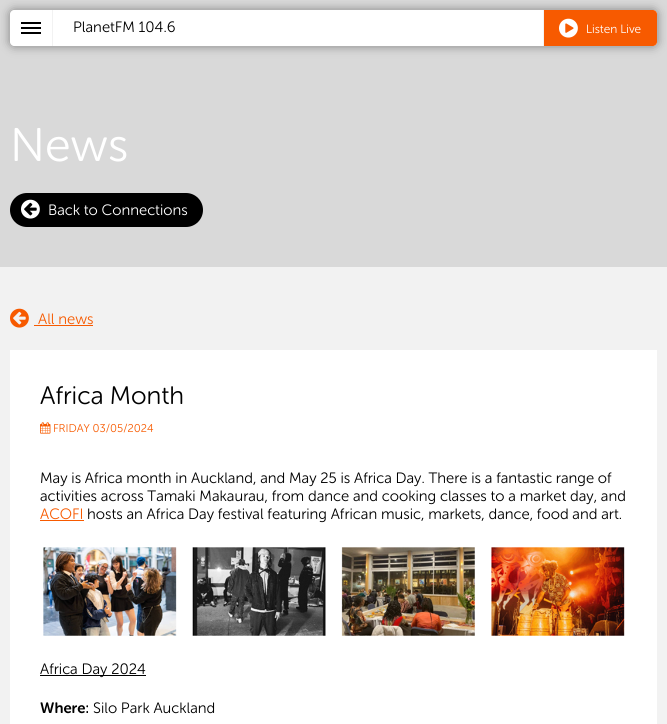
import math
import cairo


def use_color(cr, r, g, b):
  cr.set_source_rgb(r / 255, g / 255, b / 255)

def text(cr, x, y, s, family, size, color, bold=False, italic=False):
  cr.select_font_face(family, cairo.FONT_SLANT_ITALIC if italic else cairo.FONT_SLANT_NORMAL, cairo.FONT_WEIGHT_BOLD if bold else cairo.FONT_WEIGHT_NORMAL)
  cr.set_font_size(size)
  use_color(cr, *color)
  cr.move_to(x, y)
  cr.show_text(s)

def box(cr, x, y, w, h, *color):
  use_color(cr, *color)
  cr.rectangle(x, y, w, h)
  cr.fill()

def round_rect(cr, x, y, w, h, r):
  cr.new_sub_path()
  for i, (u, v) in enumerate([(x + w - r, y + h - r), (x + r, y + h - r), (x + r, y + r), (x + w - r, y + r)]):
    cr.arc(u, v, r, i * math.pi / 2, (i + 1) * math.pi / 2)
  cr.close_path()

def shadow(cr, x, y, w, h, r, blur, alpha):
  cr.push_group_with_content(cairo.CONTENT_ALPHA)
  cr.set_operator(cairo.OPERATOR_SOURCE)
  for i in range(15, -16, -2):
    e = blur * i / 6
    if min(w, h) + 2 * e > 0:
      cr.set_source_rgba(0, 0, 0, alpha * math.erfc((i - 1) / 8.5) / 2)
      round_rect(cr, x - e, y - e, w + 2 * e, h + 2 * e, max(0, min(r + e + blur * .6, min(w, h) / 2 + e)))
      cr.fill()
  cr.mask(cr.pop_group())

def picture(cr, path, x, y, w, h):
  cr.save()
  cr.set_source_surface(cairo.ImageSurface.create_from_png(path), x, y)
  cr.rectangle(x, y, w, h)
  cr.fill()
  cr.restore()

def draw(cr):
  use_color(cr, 242, 242, 242)
  cr.paint()
  box(cr, 0, 0, 667, 267, 217, 217, 217)
  use_color(cr, 0, 0, 0)
  shadow(cr, 11, 11, 645, 34, 3, 5.5, 0.5)
  use_color(cr, 255, 255, 255)
  cr.new_path()
  cr.move_to(14, 10)
  cr.line_to(52, 10)
  cr.line_to(52, 46)
  cr.line_to(14, 46)
  cr.curve_to(12, 46, 10, 44, 10, 42)
  cr.line_to(10, 14)
  cr.curve_to(10, 12, 12, 10, 14, 10)
  cr.close_path()
  cr.fill()
  box(cr, 21, 27, 20, 2, 0, 0, 0)
  box(cr, 21, 22, 20, 2, 0, 0, 0)
  box(cr, 21, 32, 20, 2, 0, 0, 0)
  use_color(cr, 255, 255, 255)
  cr.new_path()
  cr.move_to(52, 10)
  cr.line_to(653, 10)
  cr.curve_to(655, 10, 657, 12, 657, 14)
  cr.line_to(657, 42)
  cr.curve_to(657, 44, 655, 46, 653, 46)
  cr.line_to(52, 46)
  cr.close_path()
  cr.fill()
  box(cr, 52, 10, 1, 36, 242, 242, 242)
  use_color(cr, 247, 90, 0)
  cr.new_path()
  cr.move_to(543, 10)
  cr.line_to(653, 10)
  cr.curve_to(655, 10, 657, 12, 657, 14)
  cr.line_to(657, 42)
  cr.curve_to(657, 44, 655, 46, 653, 46)
  cr.line_to(543, 46)
  cr.close_path()
  cr.fill()
  box(cr, 543, 10, 1, 36, 243, 243, 243)
  picture(cr, "img_01.png", 559, 18, 19, 20)
  use_color(cr, 0, 0, 0)
  round_rect(cr, 10, 193, 193, 34, 17)
  cr.fill()
  picture(cr, "img_02.png", 21, 199, 19, 20)
  picture(cr, "img_03.png", 10, 308, 19, 20)
  box(cr, 34, 325, 59, 1, 247, 90, 0)
  box(cr, 10, 350, 647, 374, 255, 255, 255)
  picture(cr, "img_04.png", 40, 422, 11, 12)
  box(cr, 40, 520, 44, 1, 247, 90, 0)
  picture(cr, "img_05.png", 43, 547, 582, 89)
  box(cr, 40, 675, 106, 1, 0, 0, 0)
  text(cr, 73, 32, "PlanetFM 104.6", "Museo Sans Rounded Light", 15, (0, 0, 0))
  text(cr, 586, 33, "Listen Live", "Museo Sans Rounded Light", 12, (255, 255, 255))
  text(cr, 10, 161, "News", "Museo Sans Rounded Light", 47, (255, 255, 255))
  text(cr, 48, 215, "Back to Connections", "Museo Sans Rounded Light", 15, (255, 255, 255))
  text(cr, 38, 324, "All news", "Museo Sans Rounded Light", 15, (247, 90, 0))
  text(cr, 40, 404, "Africa Month", "Museo Sans Rounded Light", 25.25, (0, 0, 0))
  text(cr, 53, 432, "FRIDAY 03/05/2024", "Museo Sans Rounded Light", 11.25, (247, 90, 0))
  text(cr, 40, 483, "May is Africa month in Auckland, and May 25 is Africa Day. There is a fantastic range of", "Museo Sans Rounded Light", 15, (0, 0, 0))
  text(cr, 40, 501, "activities across Tamaki Makaurau, from dance and cooking classes to a market day, and", "Museo Sans Rounded Light", 15, (0, 0, 0))
  text(cr, 40, 519, "ACOFI", "Museo Sans Rounded Light", 15, (247, 90, 0))
  text(cr, 87, 519, "hosts an Africa Day festival featuring African music, markets, dance, food and art.", "Museo Sans Rounded Light", 15, (0, 0, 0))
  text(cr, 40, 674, "Africa Day 2024", "Museo Sans Rounded Light", 15, (0, 0, 0))
  text(cr, 40, 713, "Where:", "Museo Sans Rounded SemiBold", 15, (0, 0, 0))
  text(cr, 93, 713, "Silo Park Auckland", "Museo Sans Rounded Light", 15, (0, 0, 0))


surface = cairo.ImageSurface(cairo.FORMAT_RGB24, 667, 724)
cr = cairo.Context(surface)
options = cairo.FontOptions()
options.set_hint_metrics(cairo.HINT_METRICS_OFF)
options.set_hint_style(cairo.HINT_STYLE_NONE)
cr.set_font_options(options)
cr.set_miter_limit(4)
draw(cr)
surface.write_to_png("out.png")
